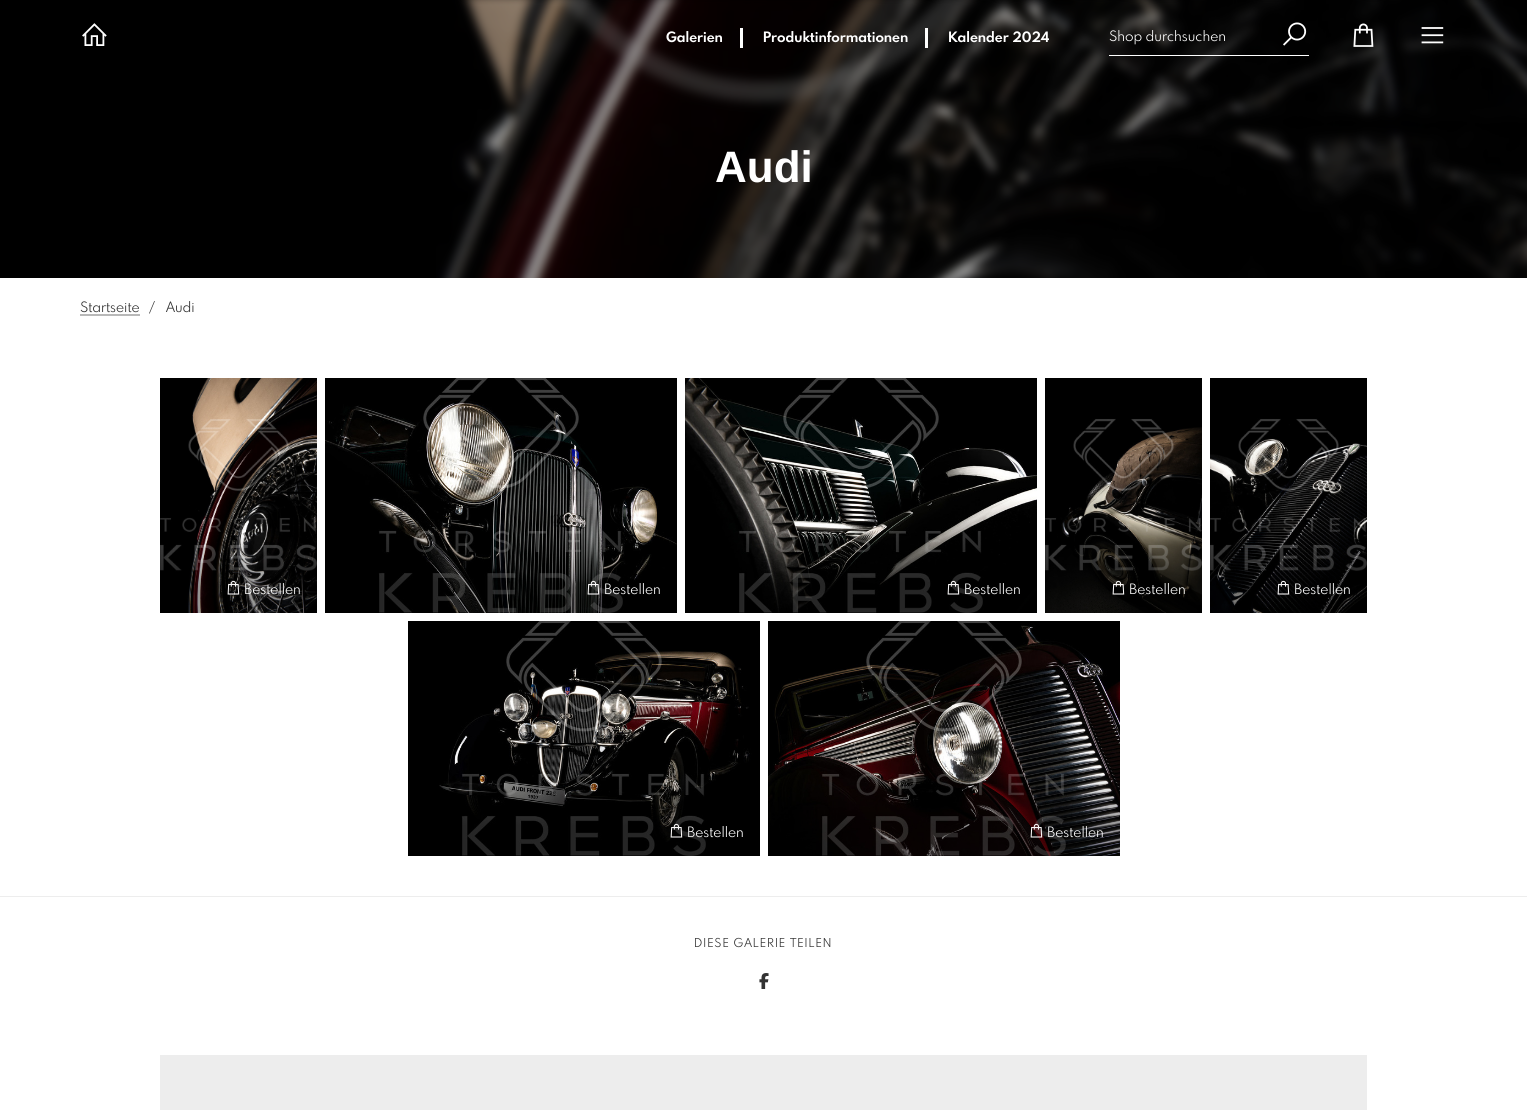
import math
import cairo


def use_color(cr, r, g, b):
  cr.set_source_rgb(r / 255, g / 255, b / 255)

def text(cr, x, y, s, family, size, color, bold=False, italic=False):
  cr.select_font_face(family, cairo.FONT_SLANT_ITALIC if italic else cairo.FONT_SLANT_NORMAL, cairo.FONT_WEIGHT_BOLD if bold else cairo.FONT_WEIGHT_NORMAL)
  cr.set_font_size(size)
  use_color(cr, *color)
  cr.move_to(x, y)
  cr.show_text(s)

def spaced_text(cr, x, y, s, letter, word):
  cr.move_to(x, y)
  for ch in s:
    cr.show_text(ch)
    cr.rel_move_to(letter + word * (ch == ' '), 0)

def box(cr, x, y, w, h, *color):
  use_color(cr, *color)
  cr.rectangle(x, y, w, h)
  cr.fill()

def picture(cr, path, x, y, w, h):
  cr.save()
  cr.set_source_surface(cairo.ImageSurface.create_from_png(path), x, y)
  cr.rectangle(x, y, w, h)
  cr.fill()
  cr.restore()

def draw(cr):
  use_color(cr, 255, 255, 255)
  cr.paint()
  box(cr, 0, 0, 1527, 278, 0, 0, 0)
  picture(cr, "img_01.png", 436, 0, 1091, 278)
  picture(cr, "img_02.png", 82, 23, 25, 23)
  box(cr, 740, 28, 3, 20, 255, 255, 255)
  box(cr, 925, 28, 3, 20, 255, 255, 255)
  box(cr, 1109, 55, 200, 1, 255, 255, 255)
  picture(cr, "img_03.png", 1283, 22, 24, 24)
  picture(cr, "img_04.png", 1353, 23, 21, 24)
  picture(cr, "img_05.png", 1421, 27, 23, 17)
  box(cr, 80, 314, 60, 2, 184, 184, 184)
  picture(cr, "img_06.png", 160, 378, 157, 235)
  picture(cr, "img_07.png", 227, 580, 13, 15)
  picture(cr, "img_08.png", 325, 378, 352, 235)
  picture(cr, "img_09.png", 587, 580, 13, 15)
  picture(cr, "img_10.png", 685, 378, 352, 235)
  picture(cr, "img_11.png", 947, 580, 13, 15)
  picture(cr, "img_12.png", 1045, 378, 157, 235)
  picture(cr, "img_13.png", 1112, 580, 13, 15)
  picture(cr, "img_14.png", 1210, 378, 157, 235)
  picture(cr, "img_15.png", 1277, 580, 13, 15)
  picture(cr, "img_16.png", 408, 621, 352, 235)
  picture(cr, "img_17.png", 670, 823, 13, 15)
  picture(cr, "img_18.png", 768, 621, 352, 235)
  picture(cr, "img_19.png", 1030, 823, 13, 15)
  box(cr, 0, 896, 1527, 1, 237, 237, 237)
  picture(cr, "img_20.png", 759, 973, 10, 16)
  box(cr, 160, 1055, 1207, 55, 237, 237, 237)
  text(cr, 666, 42, "Galerien", "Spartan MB", 14, (255, 255, 255), bold=True)
  text(cr, 763, 42, "Produktinformationen", "Spartan MB", 14, (255, 255, 255), bold=True)
  text(cr, 948, 42, "Kalender 2024", "Spartan MB", 14, (255, 255, 255), bold=True)
  text(cr, 1109, 41, "Shop durchsuchen", "Spartan MB", 14, (255, 255, 255))
  text(cr, 715, 182, "Audi", "Liberation Sans", 44, (255, 255, 255), bold=True)
  text(cr, 80, 312, "Startseite", "Spartan MB", 14, (51, 51, 51))
  text(cr, 149, 312, "/", "Spartan MB", 14, (51, 51, 51))
  text(cr, 166, 312, "Audi", "Spartan MB", 14, (51, 51, 51))
  text(cr, 244, 594, "Bestellen", "Spartan MB", 14, (255, 255, 255))
  text(cr, 604, 594, "Bestellen", "Spartan MB", 14, (255, 255, 255))
  text(cr, 964, 594, "Bestellen", "Spartan MB", 14, (255, 255, 255))
  text(cr, 1129, 594, "Bestellen", "Spartan MB", 14, (255, 255, 255))
  text(cr, 1294, 594, "Bestellen", "Spartan MB", 14, (255, 255, 255))
  text(cr, 687, 837, "Bestellen", "Spartan MB", 14, (255, 255, 255))
  text(cr, 1047, 837, "Bestellen", "Spartan MB", 14, (255, 255, 255))
  cr.set_font_size(12)
  use_color(cr, 51, 51, 51)
  spaced_text(cr, 694, 947, "DIESE GALERIE TEILEN", 1, 0)


surface = cairo.ImageSurface(cairo.FORMAT_RGB24, 1527, 1110)
cr = cairo.Context(surface)
options = cairo.FontOptions()
options.set_hint_metrics(cairo.HINT_METRICS_OFF)
options.set_hint_style(cairo.HINT_STYLE_NONE)
cr.set_font_options(options)
cr.set_miter_limit(4)
draw(cr)
surface.write_to_png("out.png")
